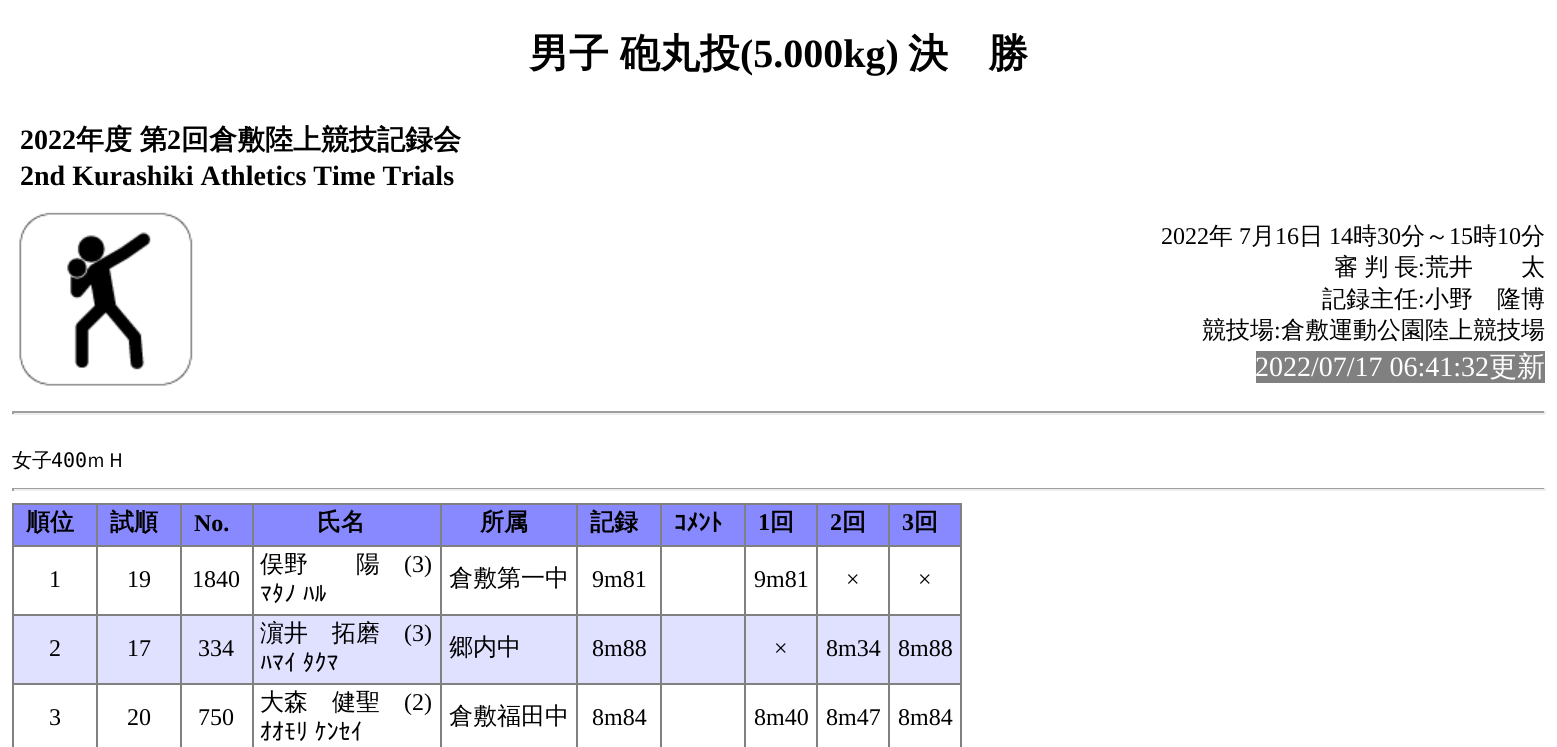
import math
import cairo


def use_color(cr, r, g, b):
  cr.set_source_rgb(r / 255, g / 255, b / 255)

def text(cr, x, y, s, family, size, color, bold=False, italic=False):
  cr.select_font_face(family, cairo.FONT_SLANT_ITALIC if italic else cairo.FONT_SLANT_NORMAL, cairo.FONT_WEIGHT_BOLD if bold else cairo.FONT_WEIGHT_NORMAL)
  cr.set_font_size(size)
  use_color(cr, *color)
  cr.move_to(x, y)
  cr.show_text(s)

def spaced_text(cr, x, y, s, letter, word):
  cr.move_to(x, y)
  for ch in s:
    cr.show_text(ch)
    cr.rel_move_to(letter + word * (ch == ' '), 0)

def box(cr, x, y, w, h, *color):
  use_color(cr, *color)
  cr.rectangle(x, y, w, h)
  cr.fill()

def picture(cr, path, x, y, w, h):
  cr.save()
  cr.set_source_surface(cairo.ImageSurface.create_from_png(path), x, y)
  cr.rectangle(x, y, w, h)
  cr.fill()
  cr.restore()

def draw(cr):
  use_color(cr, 255, 255, 255)
  cr.paint()
  picture(cr, "img_01.png", 19, 212, 174, 174)
  box(cr, 1256, 351, 289, 32, 128, 128, 128)
  box(cr, 12, 411, 1533, 2, 159, 159, 159)
  box(cr, 1544, 411, 2, 3, 238, 238, 238)
  box(cr, 12, 413, 1533, 2, 238, 238, 238)
  box(cr, 12, 411, 2, 3, 159, 159, 159)
  box(cr, 12, 488, 1533, 1, 159, 159, 159)
  box(cr, 1544, 488, 2, 3, 238, 238, 238)
  box(cr, 12, 489, 1533, 2, 238, 238, 238)
  box(cr, 12, 488, 2, 3, 159, 159, 159)
  box(cr, 12, 503, 950, 2, 128, 128, 128)
  box(cr, 12, 503, 2, 244, 128, 128, 128)
  box(cr, 14, 505, 82, 40, 136, 136, 255)
  box(cr, 14, 616, 946, 67, 224, 224, 255)
  box(cr, 888, 683, 2, 64, 128, 128, 128)
  box(cr, 960, 503, 2, 244, 128, 128, 128)
  box(cr, 888, 683, 74, 2, 128, 128, 128)
  box(cr, 888, 614, 2, 70, 128, 128, 128)
  box(cr, 888, 614, 74, 2, 128, 128, 128)
  box(cr, 888, 545, 2, 70, 128, 128, 128)
  box(cr, 888, 545, 74, 2, 128, 128, 128)
  box(cr, 888, 503, 2, 43, 128, 128, 128)
  box(cr, 816, 683, 2, 64, 128, 128, 128)
  box(cr, 816, 683, 74, 2, 128, 128, 128)
  box(cr, 816, 614, 2, 70, 128, 128, 128)
  box(cr, 816, 614, 74, 2, 128, 128, 128)
  box(cr, 816, 545, 2, 70, 128, 128, 128)
  box(cr, 816, 545, 74, 2, 128, 128, 128)
  box(cr, 816, 503, 2, 43, 128, 128, 128)
  box(cr, 744, 683, 2, 64, 128, 128, 128)
  box(cr, 744, 683, 74, 2, 128, 128, 128)
  box(cr, 744, 614, 2, 70, 128, 128, 128)
  box(cr, 744, 614, 74, 2, 128, 128, 128)
  box(cr, 744, 545, 2, 70, 128, 128, 128)
  box(cr, 744, 545, 74, 2, 128, 128, 128)
  box(cr, 744, 503, 2, 43, 128, 128, 128)
  box(cr, 660, 683, 2, 64, 128, 128, 128)
  box(cr, 660, 683, 86, 2, 128, 128, 128)
  box(cr, 660, 614, 2, 70, 128, 128, 128)
  box(cr, 660, 614, 86, 2, 128, 128, 128)
  box(cr, 660, 545, 2, 70, 128, 128, 128)
  box(cr, 660, 545, 86, 2, 128, 128, 128)
  box(cr, 660, 503, 2, 43, 128, 128, 128)
  box(cr, 576, 683, 2, 64, 128, 128, 128)
  box(cr, 576, 683, 86, 2, 128, 128, 128)
  box(cr, 576, 614, 2, 70, 128, 128, 128)
  box(cr, 576, 614, 86, 2, 128, 128, 128)
  box(cr, 576, 545, 2, 70, 128, 128, 128)
  box(cr, 576, 545, 86, 2, 128, 128, 128)
  box(cr, 576, 503, 2, 43, 128, 128, 128)
  box(cr, 440, 683, 2, 64, 128, 128, 128)
  box(cr, 440, 683, 138, 2, 128, 128, 128)
  box(cr, 440, 614, 2, 70, 128, 128, 128)
  box(cr, 440, 614, 138, 2, 128, 128, 128)
  box(cr, 440, 545, 2, 70, 128, 128, 128)
  box(cr, 440, 545, 138, 2, 128, 128, 128)
  box(cr, 440, 503, 2, 43, 128, 128, 128)
  box(cr, 252, 683, 2, 64, 128, 128, 128)
  box(cr, 252, 683, 189, 2, 128, 128, 128)
  box(cr, 252, 614, 2, 70, 128, 128, 128)
  box(cr, 252, 614, 189, 2, 128, 128, 128)
  box(cr, 252, 545, 2, 70, 128, 128, 128)
  box(cr, 252, 545, 189, 2, 128, 128, 128)
  box(cr, 252, 503, 2, 43, 128, 128, 128)
  box(cr, 180, 683, 2, 64, 128, 128, 128)
  box(cr, 180, 683, 74, 2, 128, 128, 128)
  box(cr, 180, 614, 2, 70, 128, 128, 128)
  box(cr, 180, 614, 74, 2, 128, 128, 128)
  box(cr, 180, 545, 2, 70, 128, 128, 128)
  box(cr, 180, 545, 74, 2, 128, 128, 128)
  box(cr, 180, 503, 2, 43, 128, 128, 128)
  box(cr, 96, 683, 2, 64, 128, 128, 128)
  box(cr, 96, 683, 86, 2, 128, 128, 128)
  box(cr, 96, 614, 2, 70, 128, 128, 128)
  box(cr, 96, 614, 86, 2, 128, 128, 128)
  box(cr, 96, 545, 2, 70, 128, 128, 128)
  box(cr, 96, 545, 86, 2, 128, 128, 128)
  box(cr, 96, 503, 2, 43, 128, 128, 128)
  box(cr, 12, 545, 86, 2, 128, 128, 128)
  box(cr, 98, 505, 82, 40, 136, 136, 255)
  box(cr, 182, 505, 70, 40, 136, 136, 255)
  box(cr, 254, 505, 186, 40, 136, 136, 255)
  box(cr, 442, 505, 134, 40, 136, 136, 255)
  box(cr, 578, 505, 82, 40, 136, 136, 255)
  box(cr, 662, 505, 82, 40, 136, 136, 255)
  box(cr, 746, 505, 70, 40, 136, 136, 255)
  box(cr, 818, 505, 70, 40, 136, 136, 255)
  box(cr, 890, 505, 70, 40, 136, 136, 255)
  box(cr, 12, 614, 86, 2, 128, 128, 128)
  box(cr, 12, 683, 86, 2, 128, 128, 128)
  cr.select_font_face("WenQuanYi Zen Hei", cairo.FONT_SLANT_NORMAL, cairo.FONT_WEIGHT_BOLD)
  cr.set_font_size(40)
  use_color(cr, 0, 0, 0)
  spaced_text(cr, 529, 67, "男子 砲丸投", 0, -1)
  text(cr, 740, 67, "(5.000kg)", "Liberation Serif", 40, (0, 0, 0), bold=True)
  text(cr, 908, 67, "決　勝", "WenQuanYi Zen Hei", 40, (0, 0, 0), bold=True)
  text(cr, 20, 149, "2022", "Liberation Serif", 28, (0, 0, 0), bold=True)
  cr.select_font_face("WenQuanYi Zen Hei", cairo.FONT_SLANT_NORMAL, cairo.FONT_WEIGHT_BOLD)
  spaced_text(cr, 76, 149, "年度 第", 0, -1)
  text(cr, 167, 149, "2", "Liberation Serif", 28, (0, 0, 0), bold=True)
  text(cr, 181, 149, "回倉敷陸上競技記録会", "WenQuanYi Zen Hei", 28, (0, 0, 0), bold=True)
  text(cr, 20, 185, "2nd Kurashiki Athletics Time Trials", "Liberation Serif", 28, (0, 0, 0), bold=True)
  text(cr, 1161, 244, "2022", "Liberation Serif", 24, (0, 0, 0))
  text(cr, 1209, 244, "年", "WenQuanYi Zen Hei Medium", 24, (0, 0, 0))
  text(cr, 1239, 244, "7", "Liberation Serif", 24, (0, 0, 0))
  text(cr, 1251, 244, "月", "WenQuanYi Zen Hei Medium", 24, (0, 0, 0))
  text(cr, 1275, 244, "16", "Liberation Serif", 24, (0, 0, 0))
  text(cr, 1299, 244, "日", "WenQuanYi Zen Hei Medium", 24, (0, 0, 0))
  text(cr, 1329, 244, "14", "Liberation Serif", 24, (0, 0, 0))
  text(cr, 1353, 244, "時", "WenQuanYi Zen Hei Medium", 24, (0, 0, 0))
  text(cr, 1377, 244, "30", "Liberation Serif", 24, (0, 0, 0))
  text(cr, 1401, 244, "分～", "WenQuanYi Zen Hei Medium", 24, (0, 0, 0))
  text(cr, 1449, 244, "15", "Liberation Serif", 24, (0, 0, 0))
  text(cr, 1473, 244, "時", "WenQuanYi Zen Hei Medium", 24, (0, 0, 0))
  text(cr, 1497, 244, "10", "Liberation Serif", 24, (0, 0, 0))
  text(cr, 1521, 244, "分", "WenQuanYi Zen Hei Medium", 24, (0, 0, 0))
  spaced_text(cr, 1334, 275, "審 判 長", 0, -1)
  text(cr, 1418, 275, ":", "Liberation Serif", 24, (0, 0, 0))
  text(cr, 1425, 275, "荒井　　太", "WenQuanYi Zen Hei Medium", 24, (0, 0, 0))
  text(cr, 1322, 307, "記録主任", "WenQuanYi Zen Hei Medium", 24, (0, 0, 0))
  text(cr, 1418, 307, ":", "Liberation Serif", 24, (0, 0, 0))
  text(cr, 1425, 307, "小野　隆博", "WenQuanYi Zen Hei Medium", 24, (0, 0, 0))
  text(cr, 1202, 338, "競技場", "WenQuanYi Zen Hei Medium", 24, (0, 0, 0))
  text(cr, 1274, 338, ":", "Liberation Serif", 24, (0, 0, 0))
  text(cr, 1281, 338, "倉敷運動公園陸上競技場", "WenQuanYi Zen Hei Medium", 24, (0, 0, 0))
  text(cr, 1255, 376, "2022/07/17 06:41:32", "Liberation Serif", 28, (255, 255, 255))
  text(cr, 1489, 376, "更新", "WenQuanYi Zen Hei Medium", 28, (255, 255, 255))
  text(cr, 12, 467, "女子", "WenQuanYi Zen Hei Medium", 20, (0, 0, 0))
  text(cr, 51, 467, "400", "DejaVu Sans Mono", 20, (0, 0, 0))
  text(cr, 86, 467, "ｍＨ", "WenQuanYi Zen Hei Medium", 20, (0, 0, 0))
  text(cr, 26, 530, "順位", "WenQuanYi Zen Hei", 24, (0, 0, 0), bold=True)
  text(cr, 110, 530, "試順", "WenQuanYi Zen Hei", 24, (0, 0, 0), bold=True)
  text(cr, 194, 531, "No.", "Liberation Serif", 24, (0, 0, 0), bold=True)
  text(cr, 317, 530, "氏名", "WenQuanYi Zen Hei", 24, (0, 0, 0), bold=True)
  text(cr, 480, 530, "所属", "WenQuanYi Zen Hei", 24, (0, 0, 0), bold=True)
  text(cr, 590, 530, "記録", "WenQuanYi Zen Hei", 24, (0, 0, 0), bold=True)
  text(cr, 674, 531, "ｺﾒﾝﾄ", "IPAPGothic", 24, (0, 0, 0), bold=True)
  text(cr, 758, 530, "1", "Liberation Serif", 24, (0, 0, 0), bold=True)
  text(cr, 770, 530, "回", "WenQuanYi Zen Hei", 24, (0, 0, 0), bold=True)
  text(cr, 830, 530, "2", "Liberation Serif", 24, (0, 0, 0), bold=True)
  text(cr, 842, 530, "回", "WenQuanYi Zen Hei", 24, (0, 0, 0), bold=True)
  text(cr, 902, 530, "3", "Liberation Serif", 24, (0, 0, 0), bold=True)
  text(cr, 914, 530, "回", "WenQuanYi Zen Hei", 24, (0, 0, 0), bold=True)
  text(cr, 49, 587, "1", "Liberation Serif", 24, (0, 0, 0))
  text(cr, 127, 587, "19", "Liberation Serif", 24, (0, 0, 0))
  text(cr, 192, 587, "1840", "Liberation Serif", 24, (0, 0, 0))
  text(cr, 260, 572, "俣野　　陽", "WenQuanYi Zen Hei Medium", 24, (0, 0, 0))
  text(cr, 404, 572, "(3)", "Liberation Serif", 24, (0, 0, 0))
  text(cr, 260, 602, "ﾏﾀﾉ ﾊﾙ", "IPAPGothic", 24, (0, 0, 0))
  text(cr, 449, 586, "倉敷第一中", "WenQuanYi Zen Hei Medium", 24, (0, 0, 0))
  text(cr, 592, 587, "9m81", "Liberation Serif", 24, (0, 0, 0))
  text(cr, 754, 587, "9m81", "Liberation Serif", 24, (0, 0, 0))
  text(cr, 846, 587, "×", "Liberation Serif", 24, (0, 0, 0))
  text(cr, 918, 587, "×", "Liberation Serif", 24, (0, 0, 0))
  text(cr, 49, 656, "2", "Liberation Serif", 24, (0, 0, 0))
  text(cr, 127, 656, "17", "Liberation Serif", 24, (0, 0, 0))
  text(cr, 198, 656, "334", "Liberation Serif", 24, (0, 0, 0))
  text(cr, 260, 641, "濵井　拓磨", "WenQuanYi Zen Hei Medium", 24, (0, 0, 0))
  text(cr, 404, 641, "(3)", "Liberation Serif", 24, (0, 0, 0))
  text(cr, 260, 671, "ﾊﾏｲ ﾀｸﾏ", "IPAPGothic", 24, (0, 0, 0))
  text(cr, 449, 655, "郷内中", "WenQuanYi Zen Hei Medium", 24, (0, 0, 0))
  text(cr, 592, 656, "8m88", "Liberation Serif", 24, (0, 0, 0))
  text(cr, 774, 656, "×", "Liberation Serif", 24, (0, 0, 0))
  text(cr, 826, 656, "8m34", "Liberation Serif", 24, (0, 0, 0))
  text(cr, 898, 656, "8m88", "Liberation Serif", 24, (0, 0, 0))
  text(cr, 49, 725, "3", "Liberation Serif", 24, (0, 0, 0))
  text(cr, 127, 725, "20", "Liberation Serif", 24, (0, 0, 0))
  text(cr, 198, 725, "750", "Liberation Serif", 24, (0, 0, 0))
  text(cr, 260, 710, "大森　健聖", "WenQuanYi Zen Hei Medium", 24, (0, 0, 0))
  text(cr, 404, 710, "(2)", "Liberation Serif", 24, (0, 0, 0))
  text(cr, 260, 740, "ｵｵﾓﾘ ｹﾝｾｲ", "IPAPGothic", 24, (0, 0, 0))
  text(cr, 449, 724, "倉敷福田中", "WenQuanYi Zen Hei Medium", 24, (0, 0, 0))
  text(cr, 592, 725, "8m84", "Liberation Serif", 24, (0, 0, 0))
  text(cr, 754, 725, "8m40", "Liberation Serif", 24, (0, 0, 0))
  text(cr, 826, 725, "8m47", "Liberation Serif", 24, (0, 0, 0))
  text(cr, 898, 725, "8m84", "Liberation Serif", 24, (0, 0, 0))


surface = cairo.ImageSurface(cairo.FORMAT_RGB24, 1557, 747)
cr = cairo.Context(surface)
options = cairo.FontOptions()
options.set_hint_metrics(cairo.HINT_METRICS_OFF)
options.set_hint_style(cairo.HINT_STYLE_NONE)
cr.set_font_options(options)
cr.set_miter_limit(4)
draw(cr)
surface.write_to_png("out.png")
